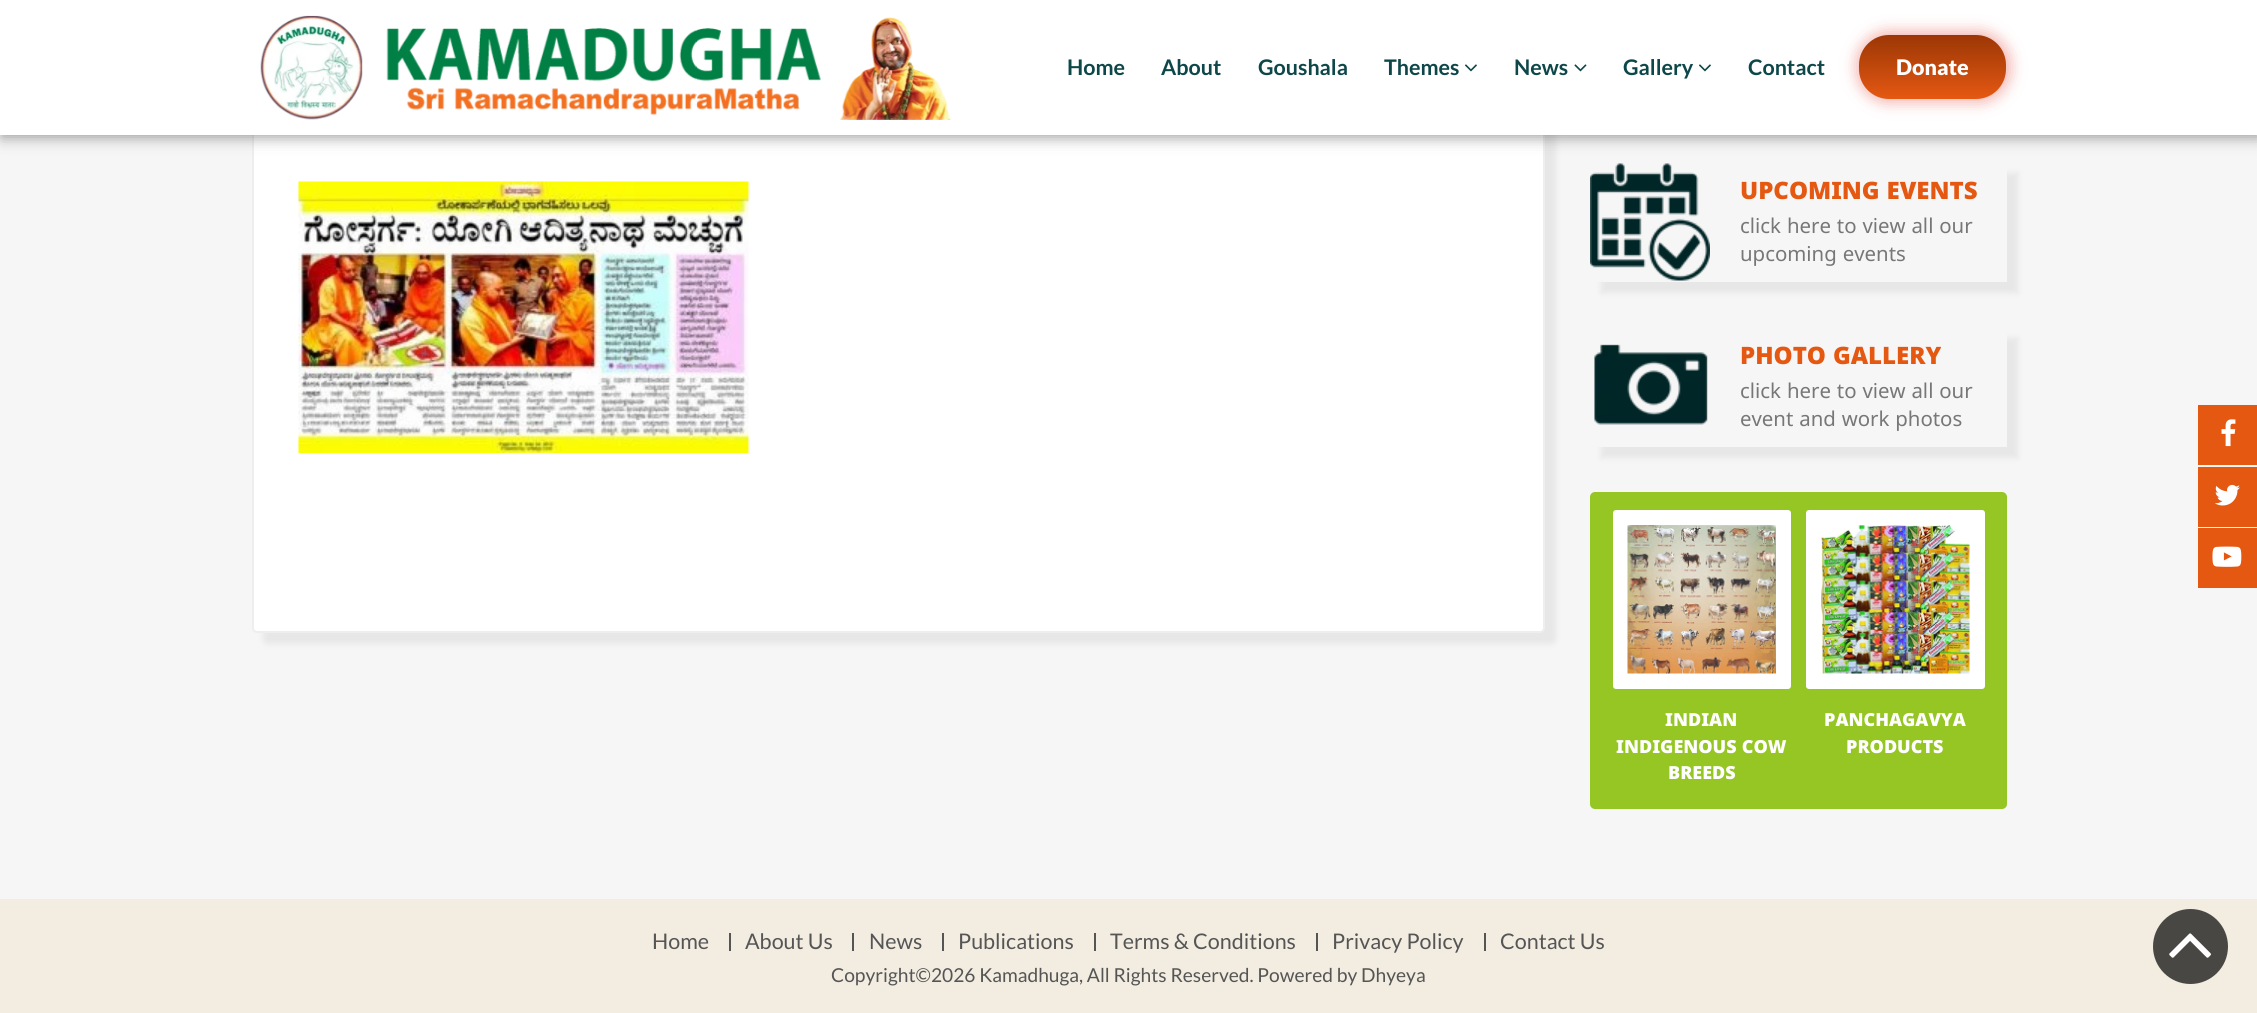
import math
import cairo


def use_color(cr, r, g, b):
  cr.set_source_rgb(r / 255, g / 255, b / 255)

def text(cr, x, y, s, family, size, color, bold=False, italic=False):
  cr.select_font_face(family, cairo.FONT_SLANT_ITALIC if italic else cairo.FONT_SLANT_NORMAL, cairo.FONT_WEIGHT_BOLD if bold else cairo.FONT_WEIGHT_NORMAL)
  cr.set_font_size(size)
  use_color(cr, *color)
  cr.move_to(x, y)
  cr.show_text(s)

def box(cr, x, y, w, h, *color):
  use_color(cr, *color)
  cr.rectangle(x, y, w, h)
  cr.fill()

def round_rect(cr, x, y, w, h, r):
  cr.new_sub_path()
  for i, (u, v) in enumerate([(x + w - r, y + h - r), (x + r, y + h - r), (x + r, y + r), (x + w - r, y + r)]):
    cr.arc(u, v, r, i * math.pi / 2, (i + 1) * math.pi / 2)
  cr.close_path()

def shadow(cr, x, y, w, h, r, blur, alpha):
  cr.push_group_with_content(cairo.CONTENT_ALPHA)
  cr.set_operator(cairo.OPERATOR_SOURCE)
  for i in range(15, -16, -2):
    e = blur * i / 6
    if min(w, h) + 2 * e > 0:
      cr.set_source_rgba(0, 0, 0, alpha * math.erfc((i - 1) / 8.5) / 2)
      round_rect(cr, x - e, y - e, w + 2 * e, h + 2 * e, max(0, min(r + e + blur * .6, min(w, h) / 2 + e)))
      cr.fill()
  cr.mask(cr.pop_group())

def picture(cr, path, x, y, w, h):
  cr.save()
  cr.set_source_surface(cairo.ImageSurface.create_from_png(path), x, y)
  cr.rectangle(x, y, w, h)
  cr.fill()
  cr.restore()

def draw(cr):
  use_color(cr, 246, 246, 246)
  cr.paint()
  use_color(cr, 90, 90, 90)
  shadow(cr, 263, -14, 1293, 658, 5, 3, 0.1)
  use_color(cr, 255, 255, 255)
  round_rect(cr, 253, -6, 1291, 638, 4)
  cr.fill_preserve()
  use_color(cr, 238, 238, 238)
  cr.stroke()
  use_color(cr, 50, 50, 50)
  shadow(cr, 2, 2, 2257, 135, 0, 7.5, 0.5)
  box(cr, 0, 0, 2257, 135, 255, 255, 255)
  picture(cr, "img_01.png", 260, 15, 691, 105)
  picture(cr, "img_02.png", 1465, 64, 12, 8)
  picture(cr, "img_03.png", 1574, 64, 13, 8)
  picture(cr, "img_02.png", 1699, 64, 12, 8)
  use_color(cr, 223, 61, 46)
  shadow(cr, 1857, 32, 153, 70, 33, 7.5, 0.42)
  gradient = cairo.LinearGradient(1932, 34, 1932, 99)
  gradient.add_color_stop_rgba(0, 0.604, 0.212, 0.02, 1)
  gradient.add_color_stop_rgba(1, 0.898, 0.345, 0.071, 1)
  cr.set_source(gradient)
  round_rect(cr, 1859, 35, 147, 64, 30)
  cr.fill()
  picture(cr, "img_04.png", 298, 181, 451, 272)
  cr.save()
  cr.set_fill_rule(cairo.FILL_RULE_EVEN_ODD)
  cr.new_path()
  cr.move_to(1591, 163)
  cr.line_to(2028, 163)
  cr.line_to(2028, 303)
  cr.line_to(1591, 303)
  cr.close_path()
  cr.move_to(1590, 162)
  cr.line_to(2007, 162)
  cr.line_to(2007, 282)
  cr.line_to(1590, 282)
  cr.close_path()
  cr.clip()
  use_color(cr, 90, 90, 90)
  shadow(cr, 1601, 173, 417, 120, 0, 3, 0.1)
  cr.restore()
  picture(cr, "img_05.png", 1590, 163, 120, 118)
  cr.save()
  cr.set_fill_rule(cairo.FILL_RULE_EVEN_ODD)
  cr.new_path()
  cr.move_to(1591, 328)
  cr.line_to(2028, 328)
  cr.line_to(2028, 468)
  cr.line_to(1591, 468)
  cr.close_path()
  cr.move_to(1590, 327)
  cr.line_to(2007, 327)
  cr.line_to(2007, 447)
  cr.line_to(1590, 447)
  cr.close_path()
  cr.clip()
  use_color(cr, 90, 90, 90)
  shadow(cr, 1601, 338, 417, 120, 0, 3, 0.1)
  cr.restore()
  picture(cr, "img_06.png", 1594, 344, 114, 81)
  use_color(cr, 149, 198, 35)
  round_rect(cr, 1590, 492, 417, 317, 5)
  cr.fill()
  use_color(cr, 255, 255, 255)
  round_rect(cr, 1613, 510, 178, 179, 3)
  cr.fill()
  picture(cr, "img_07.png", 1627, 525, 149, 149)
  round_rect(cr, 1806, 510, 179, 179, 3)
  cr.fill()
  picture(cr, "img_08.png", 1821, 525, 149, 149)
  box(cr, 2198, 405, 59, 60, 229, 88, 18)
  picture(cr, "img_09.png", 2221, 419, 15, 28)
  box(cr, 2198, 467, 59, 60, 229, 88, 18)
  picture(cr, "img_10.png", 2215, 484, 25, 22)
  box(cr, 2198, 528, 59, 60, 229, 88, 18)
  picture(cr, "img_11.png", 2212, 546, 30, 21)
  box(cr, 0, 899, 2257, 114, 242, 236, 225)
  box(cr, 729, 933, 2, 18, 85, 85, 85)
  box(cr, 852, 933, 2, 18, 85, 85, 85)
  box(cr, 942, 933, 2, 18, 85, 85, 85)
  box(cr, 1094, 933, 2, 18, 85, 85, 85)
  box(cr, 1316, 933, 2, 18, 85, 85, 85)
  box(cr, 1484, 933, 2, 18, 85, 85, 85)
  use_color(cr, 73, 71, 68)
  cr.arc(2190.5, 946.5, 37.5, 0, 2 * math.pi)
  cr.fill()
  picture(cr, "img_12.png", 2169, 933, 42, 25)
  text(cr, 1067, 75, "Home", "Lato", 21.5, (14, 71, 73), bold=True)
  text(cr, 1161, 75, "About", "Lato", 21.5, (14, 71, 73), bold=True)
  text(cr, 1258, 75, "Goushala", "Lato", 21.5, (14, 71, 73), bold=True)
  text(cr, 1384, 75, "Themes", "Lato", 21.5, (14, 71, 73), bold=True)
  text(cr, 1514, 75, "News", "Lato", 21.5, (14, 71, 73), bold=True)
  text(cr, 1623, 75, "Gallery", "Lato", 21.5, (14, 71, 73), bold=True)
  text(cr, 1748, 75, "Contact", "Lato", 21.5, (14, 71, 73), bold=True)
  text(cr, 1896, 75, "Donate", "Lato Black", 21.5, (255, 255, 255))
  text(cr, 1740, 199, "UPCOMING EVENTS", "Noto Sans Kannada Black", 24, (229, 88, 18))
  text(cr, 1740, 233, "click here to view all our", "Noto Sans Kannada", 20.4, (119, 119, 119))
  text(cr, 1740, 261, "upcoming events", "Noto Sans Kannada", 20.4, (119, 119, 119))
  text(cr, 1740, 364, "PHOTO GALLERY", "Noto Sans Kannada Black", 24, (229, 88, 18))
  text(cr, 1740, 398, "click here to view all our", "Noto Sans Kannada", 20.4, (119, 119, 119))
  text(cr, 1740, 426, "event and work photos", "Noto Sans Kannada", 20.4, (119, 119, 119))
  text(cr, 1665, 726, "INDIAN", "Noto Sans Kannada Black", 18, (255, 255, 255))
  text(cr, 1616, 753, "INDIGENOUS COW", "Noto Sans Kannada Black", 18, (255, 255, 255))
  text(cr, 1668, 779, "BREEDS", "Noto Sans Kannada Black", 18, (255, 255, 255))
  text(cr, 1824, 726, "PANCHAGAVYA", "Noto Sans Kannada Black", 18, (255, 255, 255))
  text(cr, 1846, 753, "PRODUCTS", "Noto Sans Kannada Black", 18, (255, 255, 255))
  text(cr, 652, 949, "Home", "Lato", 21.5, (85, 85, 85))
  text(cr, 745, 949, "About Us", "Lato", 21.5, (85, 85, 85))
  text(cr, 869, 949, "News", "Lato", 21.5, (85, 85, 85))
  text(cr, 958, 949, "Publications", "Lato", 21.5, (85, 85, 85))
  text(cr, 1110, 949, "Terms & Conditions", "Lato", 21.5, (85, 85, 85))
  text(cr, 1332, 949, "Privacy Policy", "Lato", 21.5, (85, 85, 85))
  text(cr, 1500, 949, "Contact Us", "Lato", 21.5, (85, 85, 85))
  text(cr, 831, 982, "Copyright©2026 Kamadhuga, All Rights Reserved. Powered by Dhyeya", "Lato", 19.2, (85, 85, 85))


surface = cairo.ImageSurface(cairo.FORMAT_RGB24, 2257, 1013)
cr = cairo.Context(surface)
options = cairo.FontOptions()
options.set_hint_metrics(cairo.HINT_METRICS_OFF)
options.set_hint_style(cairo.HINT_STYLE_NONE)
cr.set_font_options(options)
cr.set_miter_limit(4)
draw(cr)
surface.write_to_png("out.png")
